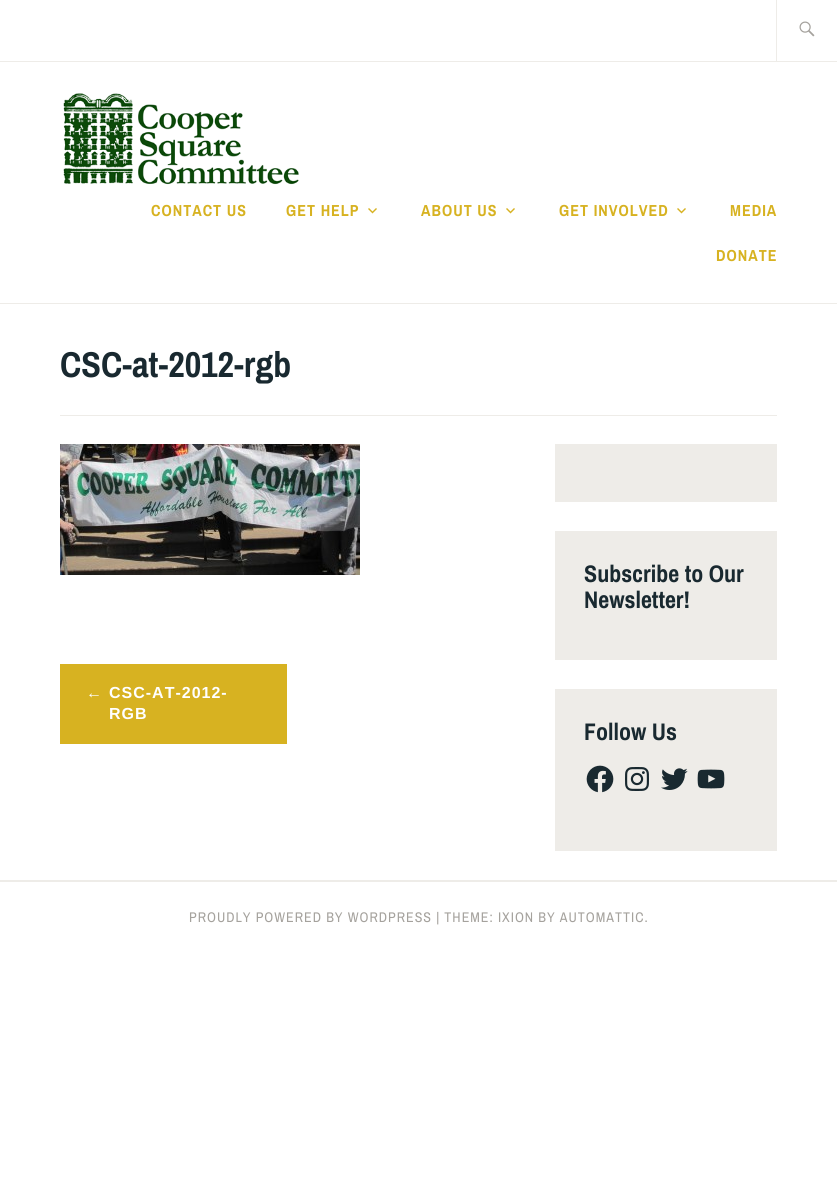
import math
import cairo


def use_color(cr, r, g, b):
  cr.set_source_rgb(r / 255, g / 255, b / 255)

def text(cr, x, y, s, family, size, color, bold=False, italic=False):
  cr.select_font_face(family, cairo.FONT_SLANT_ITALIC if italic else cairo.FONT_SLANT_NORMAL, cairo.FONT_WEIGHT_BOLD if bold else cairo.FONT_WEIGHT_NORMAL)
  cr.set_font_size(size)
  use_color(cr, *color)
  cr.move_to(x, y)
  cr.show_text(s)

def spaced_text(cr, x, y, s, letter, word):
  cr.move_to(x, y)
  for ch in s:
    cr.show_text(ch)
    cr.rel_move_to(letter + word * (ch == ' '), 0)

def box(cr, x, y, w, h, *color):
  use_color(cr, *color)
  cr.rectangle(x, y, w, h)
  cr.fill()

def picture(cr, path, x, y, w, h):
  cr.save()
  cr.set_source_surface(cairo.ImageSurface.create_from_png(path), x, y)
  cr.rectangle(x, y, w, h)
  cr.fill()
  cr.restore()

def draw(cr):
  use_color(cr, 255, 255, 255)
  cr.paint()
  box(cr, 0, 303, 837, 1, 238, 236, 232)
  box(cr, 0, 61, 837, 1, 238, 236, 232)
  box(cr, 776, 0, 1, 61, 238, 236, 232)
  picture(cr, "img_01.png", 799, 21, 16, 16)
  picture(cr, "img_02.png", 63, 93, 236, 92)
  picture(cr, "img_03.png", 368, 208, 9, 6)
  picture(cr, "img_03.png", 506, 208, 9, 6)
  picture(cr, "img_03.png", 677, 208, 9, 6)
  box(cr, 60, 415, 717, 1, 238, 236, 232)
  picture(cr, "img_04.png", 60, 444, 300, 131)
  box(cr, 60, 664, 227, 80, 215, 178, 33)
  box(cr, 555, 444, 222, 58, 238, 236, 232)
  box(cr, 555, 531, 222, 129, 238, 236, 232)
  box(cr, 555, 689, 222, 162, 238, 236, 232)
  picture(cr, "img_05.png", 586, 765, 28, 28)
  picture(cr, "img_06.png", 625, 767, 24, 24)
  picture(cr, "img_07.png", 661, 768, 27, 22)
  picture(cr, "img_08.png", 697, 769, 28, 20)
  box(cr, 0, 880, 837, 2, 238, 236, 232)
  cr.select_font_face("Archivo Narrow", cairo.FONT_SLANT_NORMAL, cairo.FONT_WEIGHT_BOLD)
  cr.set_font_size(16)
  use_color(cr, 215, 178, 33)
  spaced_text(cr, 151, 216, "CONTACT US", 1, 0)
  spaced_text(cr, 286, 216, "GET HELP", 1, 0)
  spaced_text(cr, 421, 216, "ABOUT US", 1, 0)
  spaced_text(cr, 559, 216, "GET INVOLVED", 1, 0)
  spaced_text(cr, 730, 216, "MEDIA", 1, 0)
  spaced_text(cr, 716, 261, "DONATE", 1, 0)
  text(cr, 60, 377, "CSC-at-2012-rgb", "Archivo Narrow", 36, (25, 41, 48), bold=True)
  cr.select_font_face("Liberation Sans", cairo.FONT_SLANT_NORMAL, cairo.FONT_WEIGHT_BOLD)
  cr.set_font_size(16)
  use_color(cr, 255, 255, 255)
  spaced_text(cr, 86, 698, "←", 1, 0)
  spaced_text(cr, 109, 698, "CSC-AT-2012-", 1, 0)
  spaced_text(cr, 109, 719, "RGB", 1, 0)
  text(cr, 584, 582, "Subscribe to Our", "Archivo Narrow", 24, (25, 41, 48), bold=True)
  text(cr, 584, 608, "Newsletter!", "Archivo Narrow", 24, (25, 41, 48), bold=True)
  text(cr, 584, 740, "Follow Us", "Archivo Narrow", 24, (25, 41, 48), bold=True)
  cr.select_font_face("Archivo Narrow")
  cr.set_font_size(14)
  use_color(cr, 165, 162, 157)
  spaced_text(cr, 189, 922, "PROUDLY POWERED BY WORDPRESS | THEME: IXION BY AUTOMATTIC.", 1, 0)


surface = cairo.ImageSurface(cairo.FORMAT_RGB24, 837, 1183)
cr = cairo.Context(surface)
options = cairo.FontOptions()
options.set_hint_metrics(cairo.HINT_METRICS_OFF)
options.set_hint_style(cairo.HINT_STYLE_NONE)
cr.set_font_options(options)
cr.set_miter_limit(4)
draw(cr)
surface.write_to_png("out.png")
